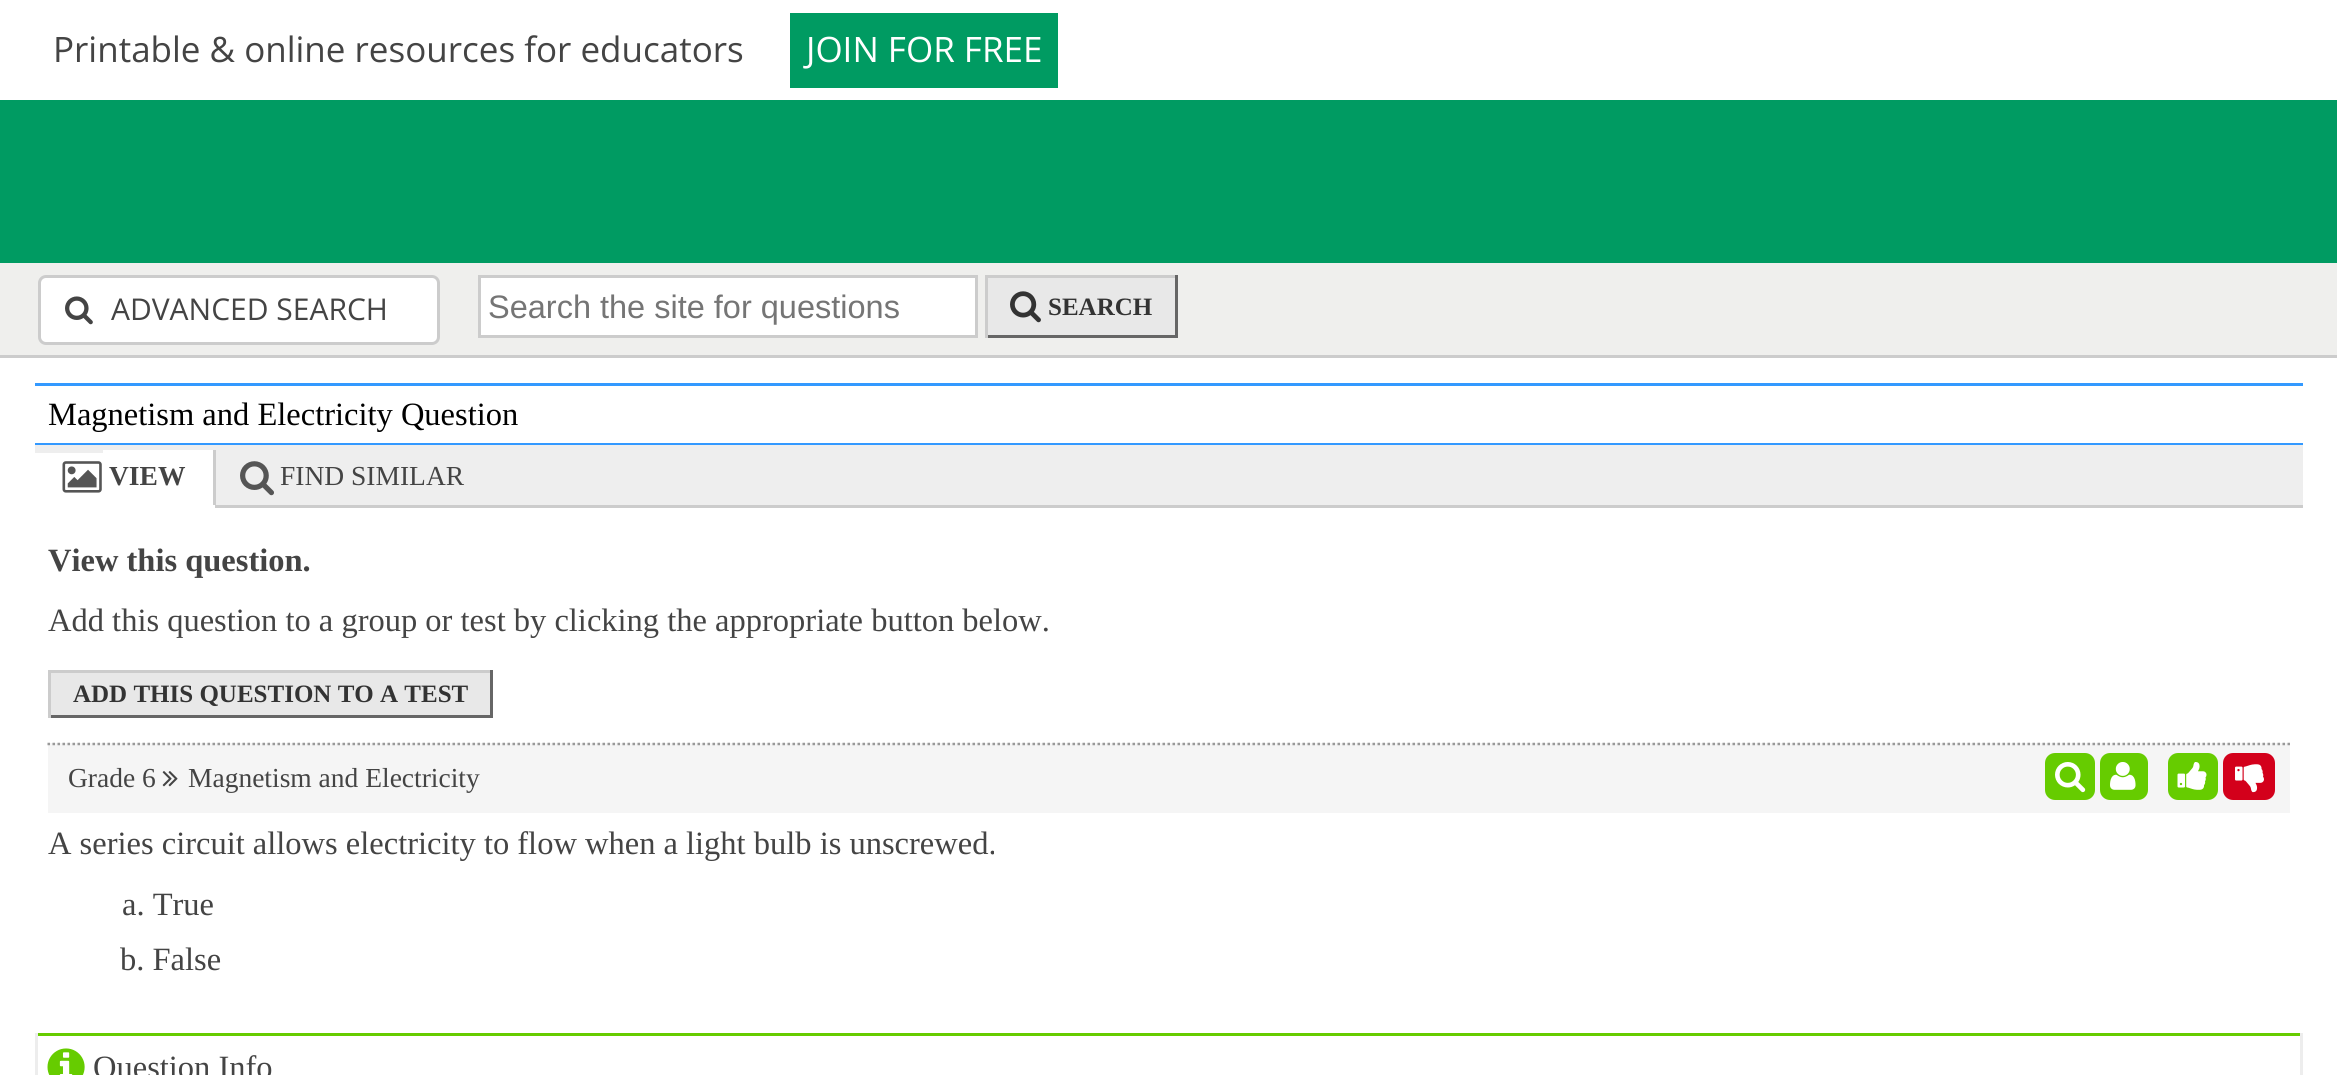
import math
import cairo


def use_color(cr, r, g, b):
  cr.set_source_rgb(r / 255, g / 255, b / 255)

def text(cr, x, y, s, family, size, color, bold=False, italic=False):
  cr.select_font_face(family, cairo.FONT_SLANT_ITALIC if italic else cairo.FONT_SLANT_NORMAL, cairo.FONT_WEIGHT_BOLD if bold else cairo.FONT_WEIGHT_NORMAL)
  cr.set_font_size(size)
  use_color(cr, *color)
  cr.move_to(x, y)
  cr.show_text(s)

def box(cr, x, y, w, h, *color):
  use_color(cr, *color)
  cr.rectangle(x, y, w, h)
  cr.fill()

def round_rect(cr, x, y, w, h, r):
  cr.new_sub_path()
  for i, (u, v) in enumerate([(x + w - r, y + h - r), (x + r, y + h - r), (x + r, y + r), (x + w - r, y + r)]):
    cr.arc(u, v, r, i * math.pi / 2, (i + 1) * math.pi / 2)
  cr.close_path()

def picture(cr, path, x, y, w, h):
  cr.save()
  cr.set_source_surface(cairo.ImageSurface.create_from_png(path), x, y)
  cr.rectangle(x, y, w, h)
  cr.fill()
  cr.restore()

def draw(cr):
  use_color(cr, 255, 255, 255)
  cr.paint()
  box(cr, 790, 13, 268, 75, 0, 155, 98)
  box(cr, 0, 100, 2337, 163, 0, 155, 98)
  box(cr, 0, 263, 2337, 92, 239, 239, 237)
  box(cr, 0, 355, 2337, 3, 204, 204, 204)
  use_color(cr, 255, 255, 255)
  round_rect(cr, 39.5, 276.5, 399, 67, 6.5)
  cr.fill_preserve()
  use_color(cr, 204, 204, 204)
  cr.set_line_width(3)
  cr.stroke()
  picture(cr, "img_01.png", 65, 296, 28, 29)
  use_color(cr, 255, 255, 255)
  cr.rectangle(479.5, 276.5, 497, 60)
  cr.fill_preserve()
  use_color(cr, 204, 204, 204)
  cr.stroke()
  box(cr, 988, 278, 187, 57, 232, 232, 232)
  box(cr, 985, 275, 193, 3, 204, 204, 204)
  box(cr, 1175, 275, 3, 63, 102, 102, 102)
  box(cr, 985, 335, 193, 3, 102, 102, 102)
  box(cr, 985, 275, 3, 63, 204, 204, 204)
  picture(cr, "img_02.png", 1010, 291, 31, 32)
  box(cr, 35, 383, 2268, 3, 51, 153, 255)
  box(cr, 35, 443, 2268, 2, 51, 153, 255)
  box(cr, 35, 445, 2268, 60, 238, 238, 238)
  box(cr, 216, 505, 2087, 3, 204, 204, 204)
  box(cr, 35, 453, 68, 52, 255, 255, 255)
  box(cr, 103, 450, 110, 55, 255, 255, 255)
  box(cr, 213, 450, 3, 58, 204, 204, 204)
  box(cr, 213, 505, 2, 3, 255, 255, 255)
  picture(cr, "img_03.png", 62, 461, 40, 32)
  picture(cr, "img_04.png", 240, 461, 34, 35)
  box(cr, 51, 673, 439, 42, 232, 232, 232)
  box(cr, 48, 670, 445, 3, 204, 204, 204)
  box(cr, 490, 670, 3, 48, 102, 102, 102)
  box(cr, 48, 715, 445, 3, 102, 102, 102)
  box(cr, 48, 670, 3, 48, 204, 204, 204)
  box(cr, 48, 743, 2242, 70, 245, 245, 245)
  cr.new_path()
  cr.move_to(47.5, 744)
  cr.line_to(2290, 744)
  use_color(cr, 153, 153, 153)
  cr.set_line_width(2.5)
  cr.set_dash([2.5, 2.5])
  cr.stroke()
  picture(cr, "img_05.png", 162, 771, 16, 16)
  use_color(cr, 102, 204, 0)
  round_rect(cr, 2046.5, 754.5, 47, 44, 8.5)
  cr.fill_preserve()
  cr.set_line_width(3)
  cr.set_dash([])
  cr.stroke()
  picture(cr, "img_06.png", 2055, 762, 31, 31)
  round_rect(cr, 2101.5, 754.5, 45, 44, 8.5)
  cr.fill_preserve()
  cr.stroke()
  picture(cr, "img_07.png", 2110, 762, 26, 28)
  round_rect(cr, 2169.5, 754.5, 47, 44, 8.5)
  cr.fill_preserve()
  cr.stroke()
  picture(cr, "img_08.png", 2177, 762, 30, 28)
  use_color(cr, 211, 0, 27)
  round_rect(cr, 2224.5, 754.5, 49, 44, 8.5)
  cr.fill_preserve()
  cr.stroke()
  picture(cr, "img_09.png", 2235, 764, 29, 29)
  box(cr, 35, 1033, 2268, 3, 102, 204, 0)
  box(cr, 2300, 1033, 3, 42, 237, 237, 237)
  box(cr, 35, 1033, 3, 42, 237, 237, 237)
  picture(cr, "img_10.png", 47, 1048, 38, 27)
  text(cr, 53, 62, "Printable & online resources for educators", "Open Sans", 35, (68, 68, 68))
  text(cr, 806, 62, "JOIN FOR FREE", "Open Sans", 35, (255, 255, 255))
  text(cr, 111, 320, "ADVANCED SEARCH", "Open Sans", 30, (68, 68, 68))
  text(cr, 488, 318, "Search the site for questions", "Liberation Sans", 32.5, (117, 117, 117))
  text(cr, 1048, 315, "SEARCH", "Liberation Serif", 25, (51, 51, 51), bold=True)
  text(cr, 48, 425, "Magnetism and Electricity Question", "Liberation Serif", 32.5, (0, 0, 0))
  text(cr, 109, 485, "VIEW", "Liberation Serif", 27.5, (68, 68, 68), bold=True)
  text(cr, 280, 485, "FIND SIMILAR", "Liberation Serif", 27.5, (68, 68, 68))
  text(cr, 48, 571, "View this question.", "Liberation Serif", 32.5, (68, 68, 68), bold=True)
  text(cr, 48, 631, "Add this question to a group or test by clicking the appropriate button below.", "Liberation Serif", 32.5, (68, 68, 68))
  text(cr, 73, 702, "ADD THIS QUESTION TO A TEST", "Liberation Serif", 25, (51, 51, 51), bold=True)
  text(cr, 68, 787, "Grade 6", "Liberation Serif", 27.5, (68, 68, 68))
  text(cr, 188, 787, "Magnetism and Electricity", "Liberation Serif", 27.5, (68, 68, 68))
  text(cr, 48, 854, "A series circuit allows electricity to flow when a light bulb is unscrewed.", "Liberation Serif", 32.5, (68, 68, 68))
  text(cr, 122, 915, "a. True", "Liberation Serif", 32.5, (68, 68, 68))
  text(cr, 120, 970, "b. False", "Liberation Serif", 32.5, (68, 68, 68))
  text(cr, 93, 1078, "Question Info", "Liberation Serif", 32.5, (68, 68, 68))


surface = cairo.ImageSurface(cairo.FORMAT_RGB24, 2337, 1075)
cr = cairo.Context(surface)
options = cairo.FontOptions()
options.set_hint_metrics(cairo.HINT_METRICS_OFF)
options.set_hint_style(cairo.HINT_STYLE_NONE)
cr.set_font_options(options)
cr.set_miter_limit(4)
draw(cr)
surface.write_to_png("out.png")
